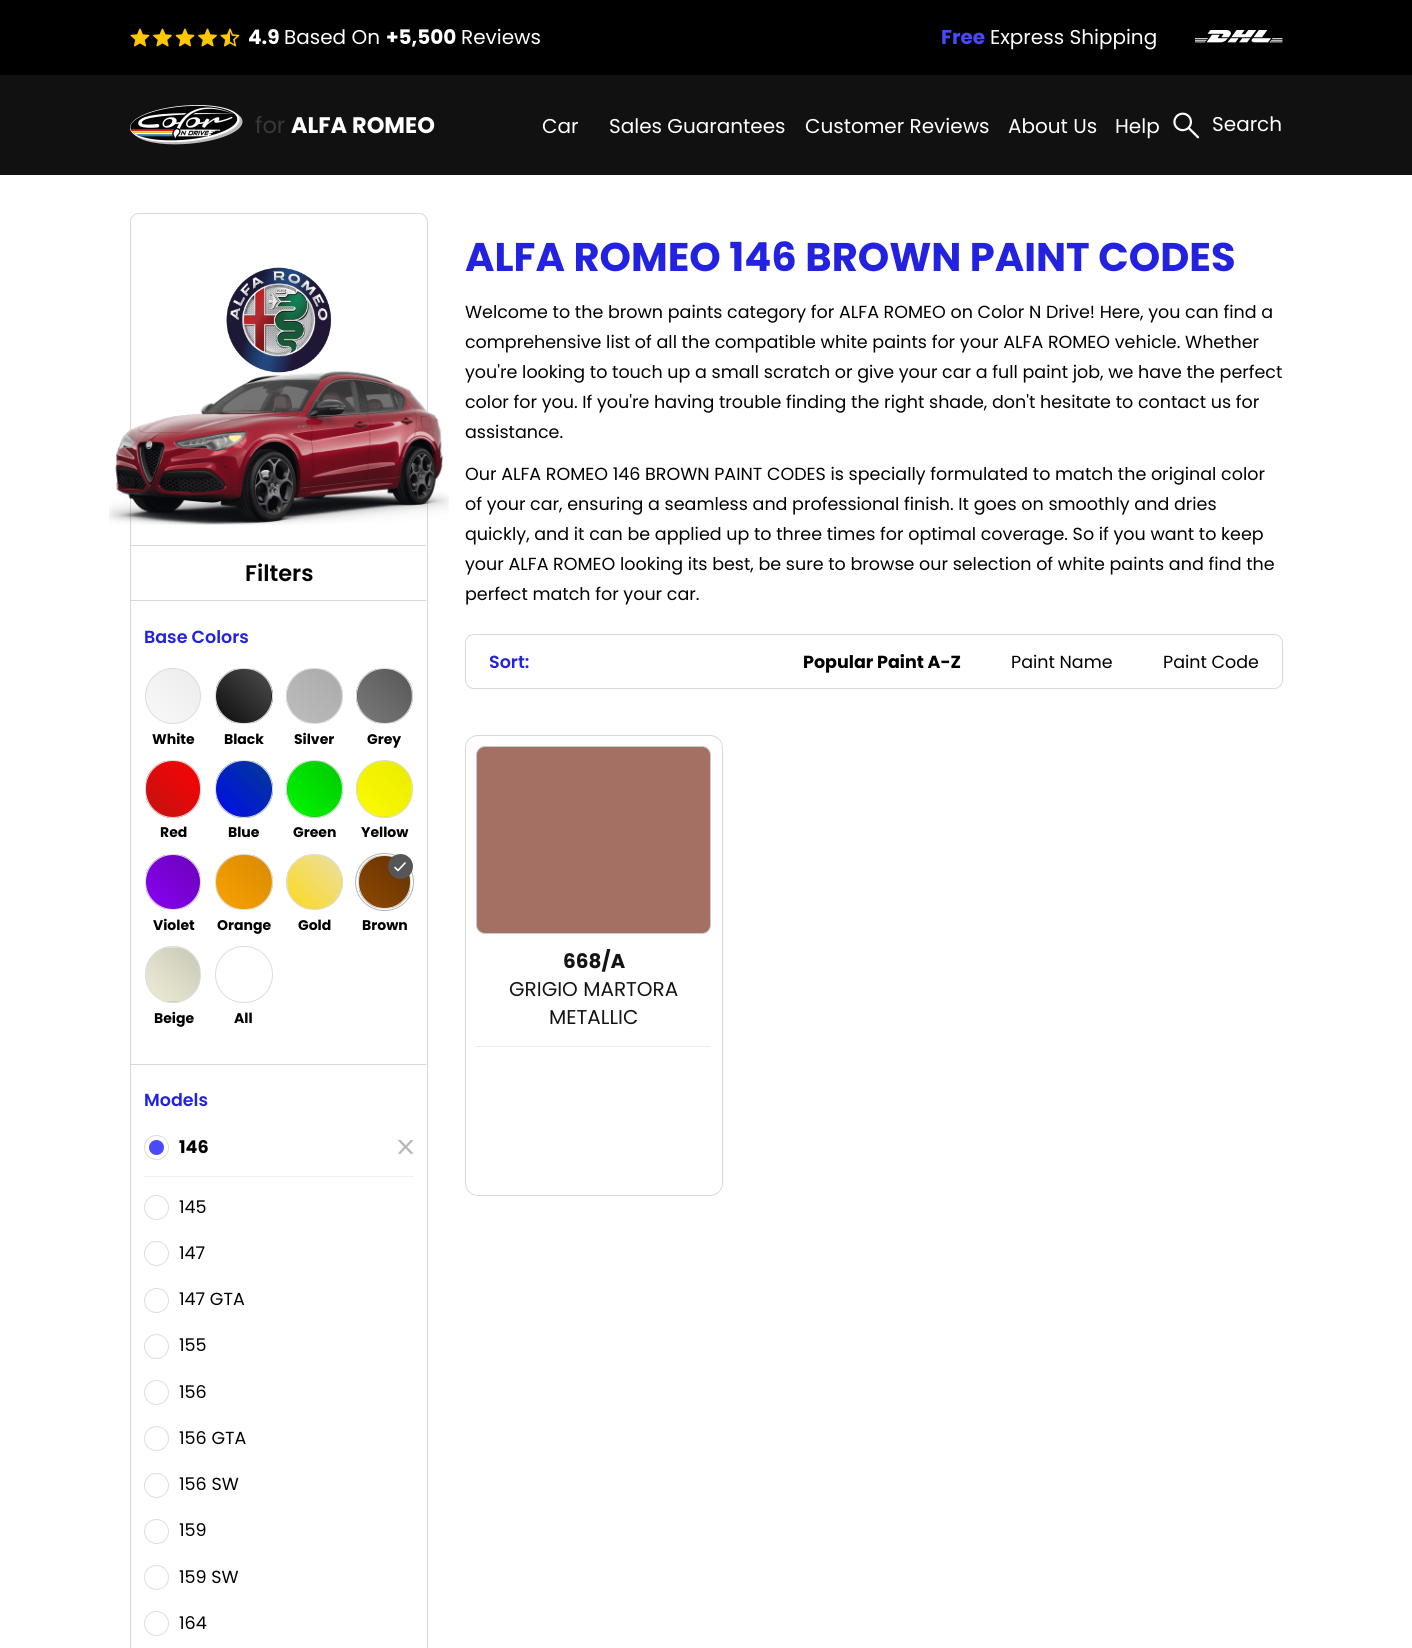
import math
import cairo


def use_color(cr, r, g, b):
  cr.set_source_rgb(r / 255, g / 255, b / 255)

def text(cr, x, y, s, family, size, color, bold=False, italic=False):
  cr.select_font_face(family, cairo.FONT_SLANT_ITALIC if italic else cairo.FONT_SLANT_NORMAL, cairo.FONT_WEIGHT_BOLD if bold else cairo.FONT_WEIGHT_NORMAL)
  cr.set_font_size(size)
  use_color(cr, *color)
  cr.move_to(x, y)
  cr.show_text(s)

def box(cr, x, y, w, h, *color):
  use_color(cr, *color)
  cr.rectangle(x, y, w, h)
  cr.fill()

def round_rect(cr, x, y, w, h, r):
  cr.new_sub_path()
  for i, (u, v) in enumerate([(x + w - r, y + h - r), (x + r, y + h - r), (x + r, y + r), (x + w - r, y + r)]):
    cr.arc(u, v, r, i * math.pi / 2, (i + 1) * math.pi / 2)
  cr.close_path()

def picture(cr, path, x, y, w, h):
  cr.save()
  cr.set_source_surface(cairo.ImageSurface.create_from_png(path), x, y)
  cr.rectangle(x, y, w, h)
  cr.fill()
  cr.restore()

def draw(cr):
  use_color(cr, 255, 255, 255)
  cr.paint()
  box(cr, 0, 0, 1412, 75, 0, 0, 0)
  picture(cr, "img_01.png", 130, 28, 20, 19)
  picture(cr, "img_02.png", 153, 28, 19, 19)
  picture(cr, "img_01.png", 175, 28, 20, 19)
  picture(cr, "img_02.png", 198, 28, 19, 19)
  picture(cr, "img_03.png", 220, 28, 20, 19)
  picture(cr, "img_04.png", 1195, 30, 88, 13)
  box(cr, 0, 75, 1412, 100, 17, 17, 17)
  picture(cr, "img_05.png", 130, 105, 113, 40)
  picture(cr, "img_06.png", 1173, 112, 27, 27)
  round_rect(cr, 130.5, 213.5, 297, 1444, 8.5)
  use_color(cr, 217, 217, 217)
  cr.set_line_width(1)
  cr.stroke()
  picture(cr, "img_07.png", 226, 267, 106, 106)
  picture(cr, "img_08.png", 109, 371, 340, 154)
  box(cr, 131, 545, 295, 1, 217, 217, 217)
  box(cr, 131, 600, 295, 1, 217, 217, 217)
  cr.save()
  round_rect(cr, 145, 668, 56, 56, 28)
  cr.clip()
  gradient = cairo.LinearGradient(146, 723, 200, 669)
  gradient.add_color_stop_rgba(0, 0.976, 0.976, 0.976, 1)
  gradient.add_color_stop_rgba(1, 0.922, 0.922, 0.922, 1)
  cr.set_source(gradient)
  cr.rectangle(146, 669, 54, 54)
  cr.fill()
  cr.restore()
  cr.arc(173, 696, 27.5, 0, 2 * math.pi)
  use_color(cr, 221, 221, 221)
  cr.stroke()
  cr.save()
  round_rect(cr, 215, 668, 58, 56, 28)
  cr.clip()
  gradient = cairo.LinearGradient(217, 723, 271, 668)
  gradient.add_color_stop_rgba(0, 0.051, 0.051, 0.051, 1)
  gradient.add_color_stop_rgba(1, 0.306, 0.306, 0.306, 1)
  cr.set_source(gradient)
  cr.rectangle(216, 669, 55, 54)
  cr.fill()
  gradient = cairo.LinearGradient(272, 723, 326, 668)
  gradient.add_color_stop_rgba(0, 0.051, 0.051, 0.051, 1)
  gradient.add_color_stop_rgba(1, 0.306, 0.306, 0.306, 1)
  cr.set_source(gradient)
  cr.rectangle(271, 685, 2, 21)
  cr.fill()
  cr.restore()
  round_rect(cr, 215.5, 668.5, 57, 55, 27.5)
  cr.stroke()
  cr.save()
  round_rect(cr, 286, 668, 57, 56, 28)
  cr.clip()
  gradient = cairo.LinearGradient(234, 723, 288, 669)
  gradient.add_color_stop_rgba(0, 0.741, 0.741, 0.741, 1)
  gradient.add_color_stop_rgba(1, 0.667, 0.667, 0.667, 1)
  cr.set_source(gradient)
  cr.rectangle(286, 685, 2, 22)
  cr.fill()
  gradient = cairo.LinearGradient(288, 723, 341, 669)
  gradient.add_color_stop_rgba(0, 0.741, 0.741, 0.741, 1)
  gradient.add_color_stop_rgba(1, 0.667, 0.667, 0.667, 1)
  cr.set_source(gradient)
  cr.rectangle(288, 669, 53, 54)
  cr.fill()
  gradient = cairo.LinearGradient(341, 723, 395, 669)
  gradient.add_color_stop_rgba(0, 0.741, 0.741, 0.741, 1)
  gradient.add_color_stop_rgba(1, 0.667, 0.667, 0.667, 1)
  cr.set_source(gradient)
  cr.rectangle(341, 685, 2, 21)
  cr.fill()
  cr.restore()
  round_rect(cr, 286.5, 668.5, 56, 55, 27.5)
  cr.stroke()
  cr.save()
  round_rect(cr, 356, 668, 57, 56, 28)
  cr.clip()
  gradient = cairo.LinearGradient(304, 723, 358, 669)
  gradient.add_color_stop_rgba(0, 0.478, 0.478, 0.478, 1)
  gradient.add_color_stop_rgba(1, 0.341, 0.341, 0.341, 1)
  cr.set_source(gradient)
  cr.rectangle(356, 685, 2, 22)
  cr.fill()
  gradient = cairo.LinearGradient(358, 723, 411, 669)
  gradient.add_color_stop_rgba(0, 0.478, 0.478, 0.478, 1)
  gradient.add_color_stop_rgba(1, 0.341, 0.341, 0.341, 1)
  cr.set_source(gradient)
  cr.rectangle(358, 669, 53, 54)
  cr.fill()
  gradient = cairo.LinearGradient(411, 723, 465, 669)
  gradient.add_color_stop_rgba(0, 0.478, 0.478, 0.478, 1)
  gradient.add_color_stop_rgba(1, 0.341, 0.341, 0.341, 1)
  cr.set_source(gradient)
  cr.rectangle(411, 685, 2, 21)
  cr.fill()
  cr.restore()
  round_rect(cr, 356.5, 668.5, 56, 55, 27.5)
  cr.stroke()
  cr.save()
  round_rect(cr, 145, 760, 56, 58, 28)
  cr.clip()
  gradient = cairo.LinearGradient(146, 816, 200, 762)
  gradient.add_color_stop_rgba(0, 0.757, 0.071, 0.071, 1)
  gradient.add_color_stop_rgba(1, 0.988, 0.008, 0.008, 1)
  cr.set_source(gradient)
  cr.rectangle(146, 761, 54, 55)
  cr.fill()
  gradient = cairo.LinearGradient(146, 871, 200, 817)
  gradient.add_color_stop_rgba(0, 0.757, 0.071, 0.071, 1)
  gradient.add_color_stop_rgba(1, 0.988, 0.008, 0.008, 1)
  cr.set_source(gradient)
  cr.rectangle(162, 816, 21, 2)
  cr.fill()
  cr.restore()
  round_rect(cr, 145.5, 760.5, 55, 57, 27.5)
  cr.stroke()
  cr.save()
  round_rect(cr, 215, 760, 58, 58, 29)
  cr.clip()
  gradient = cairo.LinearGradient(216, 816, 271, 761)
  gradient.add_color_stop_rgba(0, 0.004, 0.047, 0.918, 1)
  gradient.add_color_stop_rgba(1, 0.004, 0.231, 0.576, 1)
  cr.set_source(gradient)
  cr.rectangle(216, 761, 55, 55)
  cr.fill()
  gradient = cairo.LinearGradient(271, 816, 326, 761)
  gradient.add_color_stop_rgba(0, 0.004, 0.047, 0.918, 1)
  gradient.add_color_stop_rgba(1, 0.004, 0.231, 0.576, 1)
  cr.set_source(gradient)
  cr.rectangle(271, 778, 2, 22)
  cr.fill()
  gradient = cairo.LinearGradient(216, 871, 271, 816)
  gradient.add_color_stop_rgba(0, 0.004, 0.047, 0.918, 1)
  gradient.add_color_stop_rgba(1, 0.004, 0.231, 0.576, 1)
  cr.set_source(gradient)
  cr.rectangle(233, 816, 22, 2)
  cr.fill()
  cr.restore()
  cr.arc(244, 789, 28.5, 0, 2 * math.pi)
  cr.stroke()
  cr.save()
  round_rect(cr, 286, 760, 57, 58, 28.5)
  cr.clip()
  gradient = cairo.LinearGradient(233, 816, 288, 762)
  gradient.add_color_stop_rgba(0, 0.004, 0.969, 0.004, 1)
  gradient.add_color_stop_rgba(1, 0.004, 0.788, 0.004, 1)
  cr.set_source(gradient)
  cr.rectangle(286, 778, 2, 22)
  cr.fill()
  gradient = cairo.LinearGradient(287, 816, 342, 762)
  gradient.add_color_stop_rgba(0, 0.004, 0.969, 0.004, 1)
  gradient.add_color_stop_rgba(1, 0.004, 0.788, 0.004, 1)
  cr.set_source(gradient)
  cr.rectangle(288, 761, 53, 55)
  cr.fill()
  gradient = cairo.LinearGradient(341, 816, 395, 762)
  gradient.add_color_stop_rgba(0, 0.004, 0.969, 0.004, 1)
  gradient.add_color_stop_rgba(1, 0.004, 0.788, 0.004, 1)
  cr.set_source(gradient)
  cr.rectangle(341, 778, 2, 22)
  cr.fill()
  gradient = cairo.LinearGradient(287, 871, 342, 817)
  gradient.add_color_stop_rgba(0, 0.004, 0.969, 0.004, 1)
  gradient.add_color_stop_rgba(1, 0.004, 0.788, 0.004, 1)
  cr.set_source(gradient)
  cr.rectangle(304, 816, 21, 2)
  cr.fill()
  cr.restore()
  round_rect(cr, 286.5, 760.5, 56, 57, 28)
  cr.stroke()
  cr.save()
  round_rect(cr, 356, 760, 57, 58, 28.5)
  cr.clip()
  gradient = cairo.LinearGradient(303, 816, 358, 762)
  gradient.add_color_stop_rgba(0, 0.988, 0.988, 0.004, 1)
  gradient.add_color_stop_rgba(1, 0.918, 0.918, 0.004, 1)
  cr.set_source(gradient)
  cr.rectangle(356, 778, 2, 22)
  cr.fill()
  gradient = cairo.LinearGradient(357, 816, 412, 762)
  gradient.add_color_stop_rgba(0, 0.988, 0.988, 0.004, 1)
  gradient.add_color_stop_rgba(1, 0.918, 0.918, 0.004, 1)
  cr.set_source(gradient)
  cr.rectangle(358, 761, 53, 55)
  cr.fill()
  gradient = cairo.LinearGradient(411, 816, 465, 762)
  gradient.add_color_stop_rgba(0, 0.988, 0.988, 0.004, 1)
  gradient.add_color_stop_rgba(1, 0.918, 0.918, 0.004, 1)
  cr.set_source(gradient)
  cr.rectangle(411, 778, 2, 22)
  cr.fill()
  gradient = cairo.LinearGradient(357, 871, 412, 817)
  gradient.add_color_stop_rgba(0, 0.988, 0.988, 0.004, 1)
  gradient.add_color_stop_rgba(1, 0.918, 0.918, 0.004, 1)
  cr.set_source(gradient)
  cr.rectangle(374, 816, 21, 2)
  cr.fill()
  cr.restore()
  round_rect(cr, 356.5, 760.5, 56, 57, 28)
  cr.stroke()
  cr.save()
  round_rect(cr, 145, 854, 56, 56, 28)
  cr.clip()
  gradient = cairo.LinearGradient(146, 909, 200, 855)
  gradient.add_color_stop_rgba(0, 0.537, 0.004, 0.953, 1)
  gradient.add_color_stop_rgba(1, 0.412, 0.012, 0.722, 1)
  cr.set_source(gradient)
  cr.rectangle(146, 855, 54, 54)
  cr.fill()
  cr.restore()
  cr.arc(173, 882, 27.5, 0, 2 * math.pi)
  cr.stroke()
  cr.save()
  round_rect(cr, 215, 854, 58, 56, 28)
  cr.clip()
  gradient = cairo.LinearGradient(217, 909, 271, 855)
  gradient.add_color_stop_rgba(0, 0.976, 0.631, 0.004, 1)
  gradient.add_color_stop_rgba(1, 0.843, 0.545, 0.004, 1)
  cr.set_source(gradient)
  cr.rectangle(216, 855, 55, 54)
  cr.fill()
  gradient = cairo.LinearGradient(272, 909, 326, 855)
  gradient.add_color_stop_rgba(0, 0.976, 0.631, 0.004, 1)
  gradient.add_color_stop_rgba(1, 0.843, 0.545, 0.004, 1)
  cr.set_source(gradient)
  cr.rectangle(271, 871, 2, 21)
  cr.fill()
  cr.restore()
  round_rect(cr, 215.5, 854.5, 57, 55, 27.5)
  cr.stroke()
  cr.save()
  round_rect(cr, 286, 854, 57, 56, 28)
  cr.clip()
  gradient = cairo.LinearGradient(234, 909, 288, 855)
  gradient.add_color_stop_rgba(0, 0.988, 0.851, 0.118, 1)
  gradient.add_color_stop_rgba(1, 0.922, 0.878, 0.643, 1)
  cr.set_source(gradient)
  cr.rectangle(286, 871, 2, 22)
  cr.fill()
  gradient = cairo.LinearGradient(288, 909, 341, 855)
  gradient.add_color_stop_rgba(0, 0.988, 0.851, 0.118, 1)
  gradient.add_color_stop_rgba(1, 0.922, 0.878, 0.643, 1)
  cr.set_source(gradient)
  cr.rectangle(288, 855, 53, 54)
  cr.fill()
  gradient = cairo.LinearGradient(341, 909, 395, 855)
  gradient.add_color_stop_rgba(0, 0.988, 0.851, 0.118, 1)
  gradient.add_color_stop_rgba(1, 0.922, 0.878, 0.643, 1)
  cr.set_source(gradient)
  cr.rectangle(341, 871, 2, 21)
  cr.fill()
  cr.restore()
  round_rect(cr, 286.5, 854.5, 56, 55, 27.5)
  cr.stroke()
  round_rect(cr, 355.5, 853.5, 58, 57, 28.5)
  use_color(cr, 181, 181, 181)
  cr.stroke()
  cr.save()
  round_rect(cr, 358, 855, 53, 54, 26.5)
  cr.clip()
  gradient = cairo.LinearGradient(359, 908, 410, 856)
  gradient.add_color_stop_rgba(0, 0.565, 0.286, 0.004, 1)
  gradient.add_color_stop_rgba(1, 0.38, 0.196, 0.012, 1)
  cr.set_source(gradient)
  cr.rectangle(359, 856, 51, 52)
  cr.fill()
  cr.restore()
  round_rect(cr, 358.5, 855.5, 52, 53, 26)
  use_color(cr, 221, 221, 221)
  cr.stroke()
  use_color(cr, 86, 86, 86)
  cr.arc(400.5, 866.5, 12.5, 0, 2 * math.pi)
  cr.fill()
  cr.new_path()
  cr.move_to(405, 863)
  cr.line_to(398, 870.5)
  cr.line_to(395, 867.5)
  use_color(cr, 255, 255, 255)
  cr.set_line_width(1.6)
  cr.set_line_cap(cairo.LINE_CAP_ROUND)
  cr.set_line_join(cairo.LINE_JOIN_ROUND)
  cr.stroke()
  cr.save()
  round_rect(cr, 145, 946, 56, 57, 28)
  cr.clip()
  gradient = cairo.LinearGradient(146, 948, 200, 894)
  gradient.add_color_stop_rgba(0, 0.933, 0.933, 0.839, 1)
  gradient.add_color_stop_rgba(1, 0.78, 0.78, 0.718, 1)
  cr.set_source(gradient)
  cr.rectangle(162, 946, 22, 2)
  cr.fill()
  gradient = cairo.LinearGradient(146, 1001, 200, 948)
  gradient.add_color_stop_rgba(0, 0.933, 0.933, 0.839, 1)
  gradient.add_color_stop_rgba(1, 0.78, 0.78, 0.718, 1)
  cr.set_source(gradient)
  cr.rectangle(146, 948, 54, 53)
  cr.fill()
  gradient = cairo.LinearGradient(146, 1055, 200, 1001)
  gradient.add_color_stop_rgba(0, 0.933, 0.933, 0.839, 1)
  gradient.add_color_stop_rgba(1, 0.78, 0.78, 0.718, 1)
  cr.set_source(gradient)
  cr.rectangle(162, 1001, 21, 2)
  cr.fill()
  cr.restore()
  round_rect(cr, 145.5, 946.5, 55, 56, 27.5)
  use_color(cr, 221, 221, 221)
  cr.set_line_width(1)
  cr.set_line_cap(cairo.LINE_CAP_BUTT)
  cr.set_line_join(cairo.LINE_JOIN_MITER)
  cr.stroke()
  round_rect(cr, 215.5, 946.5, 57, 56, 28)
  cr.stroke()
  box(cr, 131, 1064, 295, 1, 217, 217, 217)
  cr.arc(156.5, 1147.5, 12, 0, 2 * math.pi)
  use_color(cr, 221, 221, 221)
  cr.stroke()
  use_color(cr, 72, 74, 251)
  cr.arc(156.5, 1147.5, 7.5, 0, 2 * math.pi)
  cr.fill()
  picture(cr, "img_09.png", 398, 1140, 16, 14)
  box(cr, 144, 1176, 270, 1, 240, 240, 240)
  cr.arc(156.5, 1207.5, 12, 0, 2 * math.pi)
  use_color(cr, 221, 221, 221)
  cr.stroke()
  cr.arc(156.5, 1253.5, 12, 0, 2 * math.pi)
  cr.stroke()
  cr.arc(156.5, 1300.5, 12, 0, 2 * math.pi)
  cr.stroke()
  cr.arc(156.5, 1346.5, 12, 0, 2 * math.pi)
  cr.stroke()
  cr.arc(156.5, 1392.5, 12, 0, 2 * math.pi)
  cr.stroke()
  cr.arc(156.5, 1438.5, 12, 0, 2 * math.pi)
  cr.stroke()
  cr.arc(156.5, 1485.5, 12, 0, 2 * math.pi)
  cr.stroke()
  cr.arc(156.5, 1531.5, 12, 0, 2 * math.pi)
  cr.stroke()
  cr.arc(156.5, 1577.5, 12, 0, 2 * math.pi)
  cr.stroke()
  cr.arc(156.5, 1623.5, 12, 0, 2 * math.pi)
  cr.stroke()
  round_rect(cr, 465.5, 634.5, 817, 54, 8.5)
  use_color(cr, 217, 217, 217)
  cr.stroke()
  round_rect(cr, 465.5, 735.5, 257, 460, 12.5)
  cr.stroke()
  use_color(cr, 163, 112, 99)
  round_rect(cr, 476.5, 746.5, 234, 187, 8.5)
  cr.fill_preserve()
  use_color(cr, 204, 204, 204)
  cr.stroke()
  box(cr, 476, 1046, 235, 1, 234, 234, 234)
  text(cr, 248, 44, "4.9", "Poppins", 20, (255, 255, 255), bold=True)
  text(cr, 284, 44, "Based On", "Poppins", 20, (255, 255, 255))
  text(cr, 386, 44, "+5,500", "Poppins", 20, (255, 255, 255), bold=True)
  text(cr, 461, 44, "Reviews", "Poppins", 20, (255, 255, 255))
  text(cr, 941, 44, "Free", "Poppins", 20, (72, 74, 251), bold=True)
  text(cr, 990, 44, "Express Shipping", "Poppins", 20, (255, 255, 255))
  text(cr, 255, 133, "for", "Poppins", 22.5, (56, 56, 56))
  text(cr, 291, 133, "ALFA ROMEO", "Poppins", 22.5, (255, 255, 255), bold=True)
  text(cr, 542, 133, "Car", "Poppins", 20, (255, 255, 255))
  text(cr, 609, 133, "Sales Guarantees", "Poppins", 20, (255, 255, 255))
  text(cr, 805, 133, "Customer Reviews", "Poppins", 20, (255, 255, 255))
  text(cr, 1008, 133, "About Us", "Poppins", 20, (255, 255, 255))
  text(cr, 1115, 133, "Help", "Poppins", 20, (255, 255, 255))
  text(cr, 1212, 131, "Search", "Poppins", 20, (255, 255, 255))
  text(cr, 245, 581, "Filters", "Poppins SemiBold", 22.5, (0, 0, 0))
  text(cr, 144, 643, "Base Colors", "Poppins SemiBold", 17.5, (34, 34, 224))
  text(cr, 152, 744, "White", "Poppins", 14, (0, 0, 0), bold=True)
  text(cr, 224, 744, "Black", "Poppins", 14, (0, 0, 0), bold=True)
  text(cr, 294, 744, "Silver", "Poppins", 14, (0, 0, 0), bold=True)
  text(cr, 367, 744, "Grey", "Poppins", 14, (0, 0, 0), bold=True)
  text(cr, 160, 837, "Red", "Poppins", 14, (0, 0, 0), bold=True)
  text(cr, 228, 837, "Blue", "Poppins", 14, (0, 0, 0), bold=True)
  text(cr, 293, 837, "Green", "Poppins", 14, (0, 0, 0), bold=True)
  text(cr, 361, 837, "Yellow", "Poppins", 14, (0, 0, 0), bold=True)
  text(cr, 153, 930, "Violet", "Poppins", 14, (0, 0, 0), bold=True)
  text(cr, 217, 930, "Orange", "Poppins", 14, (0, 0, 0), bold=True)
  text(cr, 298, 930, "Gold", "Poppins", 14, (0, 0, 0), bold=True)
  text(cr, 362, 930, "Brown", "Poppins", 14, (0, 0, 0), bold=True)
  text(cr, 154, 1023, "Beige", "Poppins", 14, (0, 0, 0), bold=True)
  text(cr, 234, 1023, "All", "Poppins", 14, (0, 0, 0), bold=True)
  text(cr, 144, 1106, "Models", "Poppins SemiBold", 17.5, (34, 34, 224))
  text(cr, 179, 1153, "146", "Poppins", 17.5, (0, 0, 0), bold=True)
  text(cr, 179, 1213, "145", "Poppins", 17.5, (0, 0, 0))
  text(cr, 179, 1259, "147", "Poppins", 17.5, (0, 0, 0))
  text(cr, 179, 1305, "147 GTA", "Poppins", 17.5, (0, 0, 0))
  text(cr, 179, 1351, "155", "Poppins", 17.5, (0, 0, 0))
  text(cr, 179, 1398, "156", "Poppins", 17.5, (0, 0, 0))
  text(cr, 179, 1444, "156 GTA", "Poppins", 17.5, (0, 0, 0))
  text(cr, 179, 1490, "156 SW", "Poppins", 17.5, (0, 0, 0))
  text(cr, 179, 1536, "159", "Poppins", 17.5, (0, 0, 0))
  text(cr, 179, 1583, "159 SW", "Poppins", 17.5, (0, 0, 0))
  text(cr, 179, 1629, "164", "Poppins", 17.5, (0, 0, 0))
  text(cr, 465, 271, "ALFA ROMEO 146 BROWN PAINT CODES", "Poppins", 40, (34, 34, 224), bold=True)
  text(cr, 465, 318, "Welcome to the brown paints category for ALFA ROMEO on Color N Drive! Here, you can find a", "Poppins", 17.5, (0, 0, 0))
  text(cr, 465, 348, "comprehensive list of all the compatible white paints for your ALFA ROMEO vehicle. Whether", "Poppins", 17.5, (0, 0, 0))
  text(cr, 465, 378, "you're looking to touch up a small scratch or give your car a full paint job, we have the perfect", "Poppins", 17.5, (0, 0, 0))
  text(cr, 465, 408, "color for you. If you're having trouble finding the right shade, don't hesitate to contact us for", "Poppins", 17.5, (0, 0, 0))
  text(cr, 465, 438, "assistance.", "Poppins", 17.5, (0, 0, 0))
  text(cr, 465, 480, "Our ALFA ROMEO 146 BROWN PAINT CODES is specially formulated to match the original color", "Poppins", 17.5, (0, 0, 0))
  text(cr, 465, 510, "of your car, ensuring a seamless and professional finish. It goes on smoothly and dries", "Poppins", 17.5, (0, 0, 0))
  text(cr, 465, 540, "quickly, and it can be applied up to three times for optimal coverage. So if you want to keep", "Poppins", 17.5, (0, 0, 0))
  text(cr, 465, 570, "your ALFA ROMEO looking its best, be sure to browse our selection of white paints and find the", "Poppins", 17.5, (0, 0, 0))
  text(cr, 465, 600, "perfect match for your car.", "Poppins", 17.5, (0, 0, 0))
  text(cr, 489, 668, "Sort:", "Poppins SemiBold", 17.5, (34, 34, 224))
  text(cr, 803, 668, "Popular Paint A-Z", "Poppins", 17.5, (0, 0, 0), bold=True)
  text(cr, 1011, 668, "Paint Name", "Poppins", 17.5, (0, 0, 0))
  text(cr, 1163, 668, "Paint Code", "Poppins", 17.5, (0, 0, 0))
  text(cr, 563, 968, "668/A", "Poppins", 20, (20, 20, 20), bold=True)
  text(cr, 509, 996, "GRIGIO MARTORA", "Poppins", 20, (20, 20, 20))
  text(cr, 549, 1024, "METALLIC", "Poppins", 20, (20, 20, 20))


surface = cairo.ImageSurface(cairo.FORMAT_RGB24, 1412, 1648)
cr = cairo.Context(surface)
options = cairo.FontOptions()
options.set_hint_metrics(cairo.HINT_METRICS_OFF)
options.set_hint_style(cairo.HINT_STYLE_NONE)
cr.set_font_options(options)
cr.set_miter_limit(4)
draw(cr)
surface.write_to_png("out.png")
